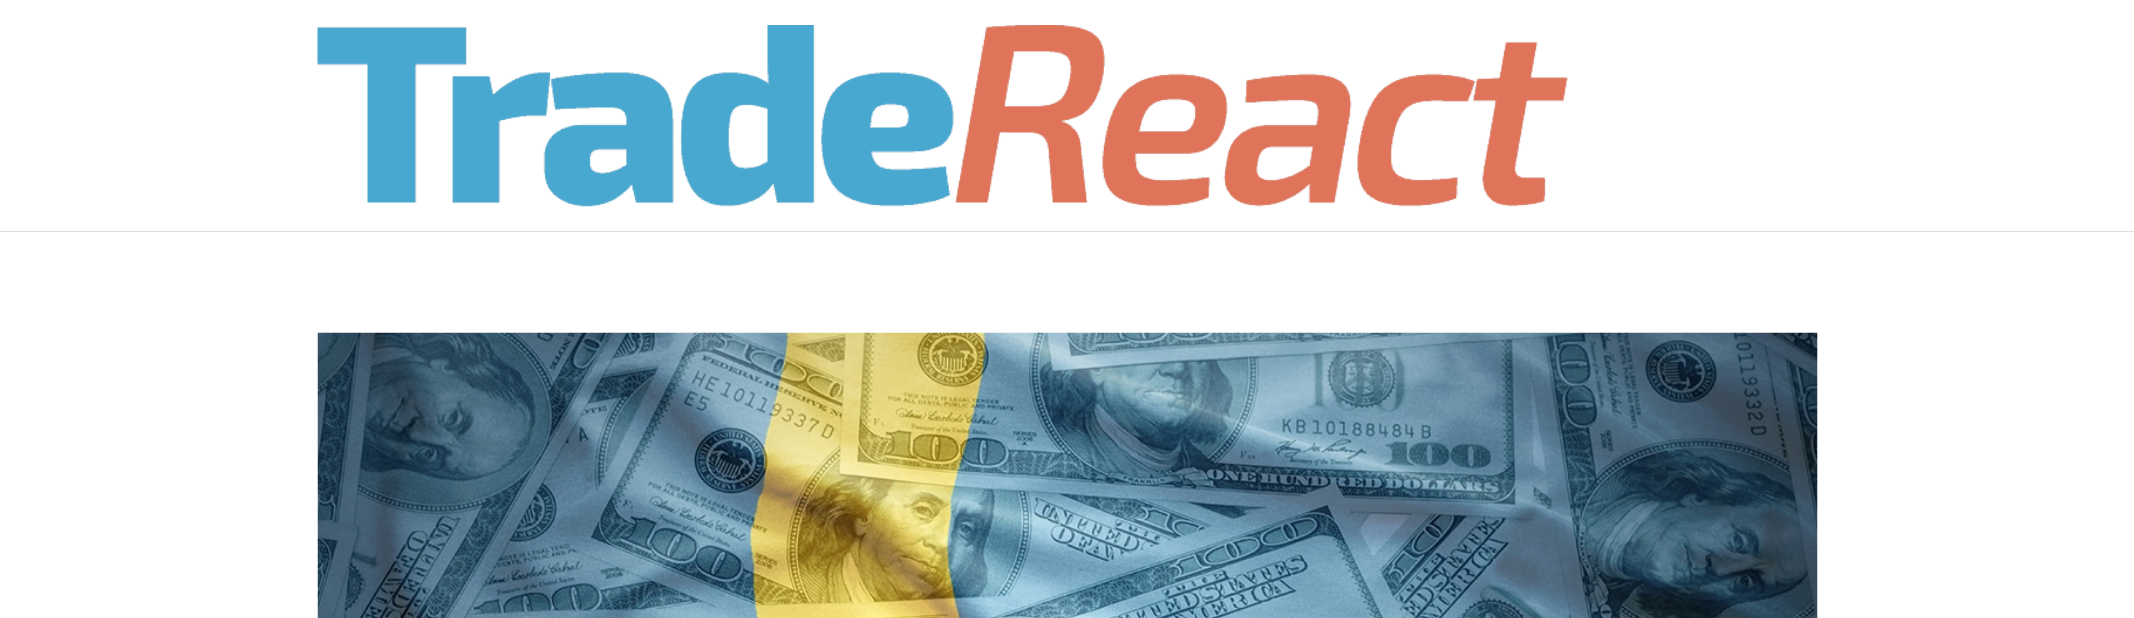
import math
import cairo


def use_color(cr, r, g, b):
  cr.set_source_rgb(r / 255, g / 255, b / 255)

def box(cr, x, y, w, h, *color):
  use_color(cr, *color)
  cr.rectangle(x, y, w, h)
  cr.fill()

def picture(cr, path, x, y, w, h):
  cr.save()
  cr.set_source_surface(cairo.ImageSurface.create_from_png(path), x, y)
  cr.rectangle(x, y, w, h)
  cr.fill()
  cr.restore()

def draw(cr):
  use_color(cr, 255, 255, 255)
  cr.paint()
  box(cr, 0, 231, 2134, 1, 221, 221, 221)
  picture(cr, "img_01.png", 317, 25, 1251, 182)
  picture(cr, "img_02.png", 317, 332, 1501, 286)


surface = cairo.ImageSurface(cairo.FORMAT_RGB24, 2134, 618)
cr = cairo.Context(surface)
options = cairo.FontOptions()
options.set_hint_metrics(cairo.HINT_METRICS_OFF)
options.set_hint_style(cairo.HINT_STYLE_NONE)
cr.set_font_options(options)
cr.set_miter_limit(4)
draw(cr)
surface.write_to_png("out.png")
